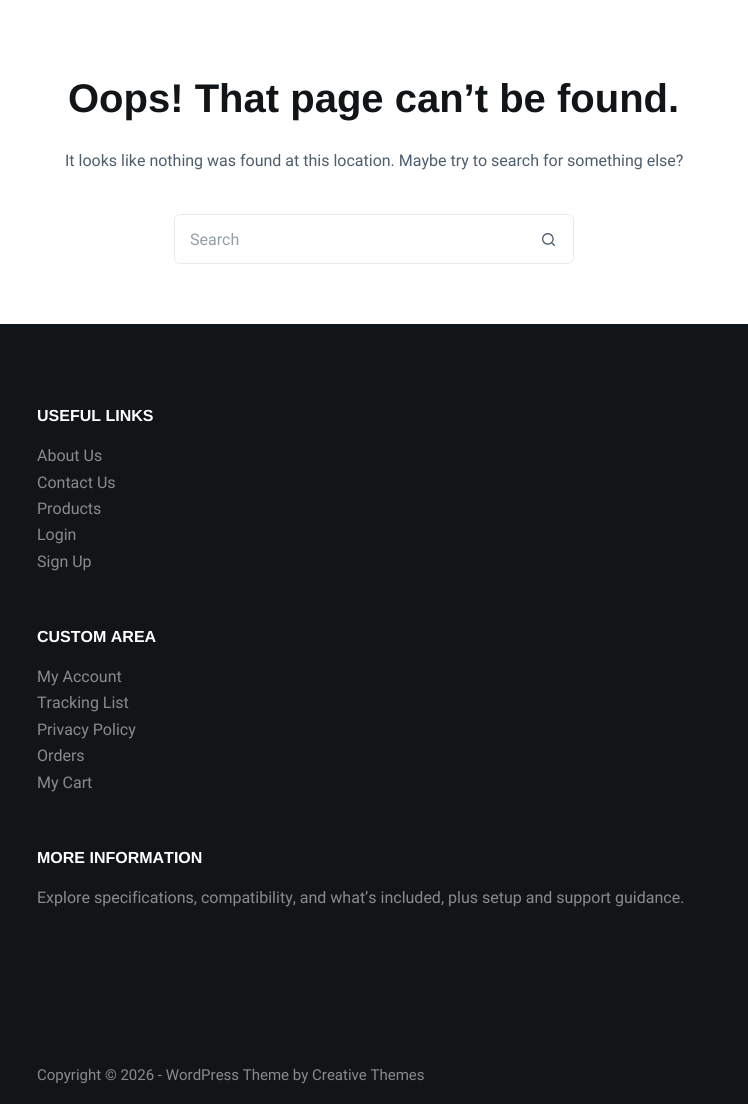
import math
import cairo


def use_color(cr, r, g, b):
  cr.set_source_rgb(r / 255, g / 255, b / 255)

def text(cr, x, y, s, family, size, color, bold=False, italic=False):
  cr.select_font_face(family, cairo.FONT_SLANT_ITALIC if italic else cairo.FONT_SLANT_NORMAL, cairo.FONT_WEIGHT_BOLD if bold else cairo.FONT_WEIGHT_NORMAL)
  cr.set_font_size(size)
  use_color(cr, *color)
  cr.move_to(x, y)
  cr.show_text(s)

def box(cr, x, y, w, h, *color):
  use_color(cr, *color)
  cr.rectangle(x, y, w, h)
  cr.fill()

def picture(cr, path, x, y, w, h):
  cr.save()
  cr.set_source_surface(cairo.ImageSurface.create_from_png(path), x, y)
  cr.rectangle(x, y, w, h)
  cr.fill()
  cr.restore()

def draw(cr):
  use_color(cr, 255, 255, 255)
  cr.paint()
  use_color(cr, 231, 235, 238)
  cr.set_fill_rule(cairo.FILL_RULE_EVEN_ODD)
  cr.new_path()
  cr.move_to(180, 214)
  cr.line_to(524, 214)
  cr.line_to(524, 264)
  cr.line_to(180, 264)
  cr.curve_to(177, 264, 174, 261, 174, 258)
  cr.line_to(174, 220)
  cr.curve_to(174, 217, 177, 214, 180, 214)
  cr.close_path()
  cr.move_to(180, 215)
  cr.line_to(524, 215)
  cr.line_to(524, 263)
  cr.line_to(180, 263)
  cr.curve_to(177, 263, 175, 261, 175, 258)
  cr.line_to(175, 220)
  cr.curve_to(175, 217, 177, 215, 180, 215)
  cr.close_path()
  cr.fill()
  cr.new_path()
  cr.move_to(524, 214)
  cr.line_to(568, 214)
  cr.curve_to(571, 214, 574, 217, 574, 220)
  cr.line_to(574, 258)
  cr.curve_to(574, 261, 571, 264, 568, 264)
  cr.line_to(524, 264)
  cr.close_path()
  cr.move_to(524, 215)
  cr.line_to(568, 215)
  cr.curve_to(571, 215, 573, 217, 573, 220)
  cr.line_to(573, 258)
  cr.curve_to(573, 261, 571, 263, 568, 263)
  cr.line_to(524, 263)
  cr.close_path()
  cr.fill()
  picture(cr, "img_01.png", 542, 233, 13, 13)
  box(cr, 0, 324, 748, 780, 17, 21, 24)
  text(cr, 68, 112, "Oops! That page can’t be found.", "Liberation Sans", 40, (17, 21, 24), bold=True)
  text(cr, 65, 166, "It looks like nothing was found at this location. Maybe try to search for something else?", "Roboto", 16, (77, 93, 109))
  text(cr, 190, 245, "Search", "Roboto", 16, (148, 158, 167))
  text(cr, 37, 421, "USEFUL LINKS", "Liberation Sans", 16, (255, 255, 255), bold=True)
  text(cr, 37, 461, "About Us", "Roboto", 16, (136, 138, 140))
  text(cr, 37, 488, "Contact Us", "Roboto", 16, (136, 138, 140))
  text(cr, 37, 514, "Products", "Roboto", 16, (136, 138, 140))
  text(cr, 37, 540, "Login", "Roboto", 16, (136, 138, 140))
  text(cr, 37, 567, "Sign Up", "Roboto", 16, (136, 138, 140))
  text(cr, 37, 642, "CUSTOM AREA", "Liberation Sans", 16, (255, 255, 255), bold=True)
  text(cr, 37, 682, "My Account", "Roboto", 16, (136, 138, 140))
  text(cr, 37, 708, "Tracking List", "Roboto", 16, (136, 138, 140))
  text(cr, 37, 735, "Privacy Policy", "Roboto", 16, (136, 138, 140))
  text(cr, 37, 761, "Orders", "Roboto", 16, (136, 138, 140))
  text(cr, 37, 788, "My Cart", "Roboto", 16, (136, 138, 140))
  text(cr, 37, 863, "MORE INFORMATION", "Liberation Sans", 16, (255, 255, 255), bold=True)
  text(cr, 37, 903, "Explore specifications, compatibility, and what’s included, plus setup and support guidance.", "Roboto", 16, (136, 138, 140))
  text(cr, 37, 1080, "Copyright © 2026 - WordPress Theme by Creative Themes", "Roboto", 15, (136, 138, 140))


surface = cairo.ImageSurface(cairo.FORMAT_RGB24, 748, 1104)
cr = cairo.Context(surface)
options = cairo.FontOptions()
options.set_hint_metrics(cairo.HINT_METRICS_OFF)
options.set_hint_style(cairo.HINT_STYLE_NONE)
cr.set_font_options(options)
cr.set_miter_limit(4)
draw(cr)
surface.write_to_png("out.png")
